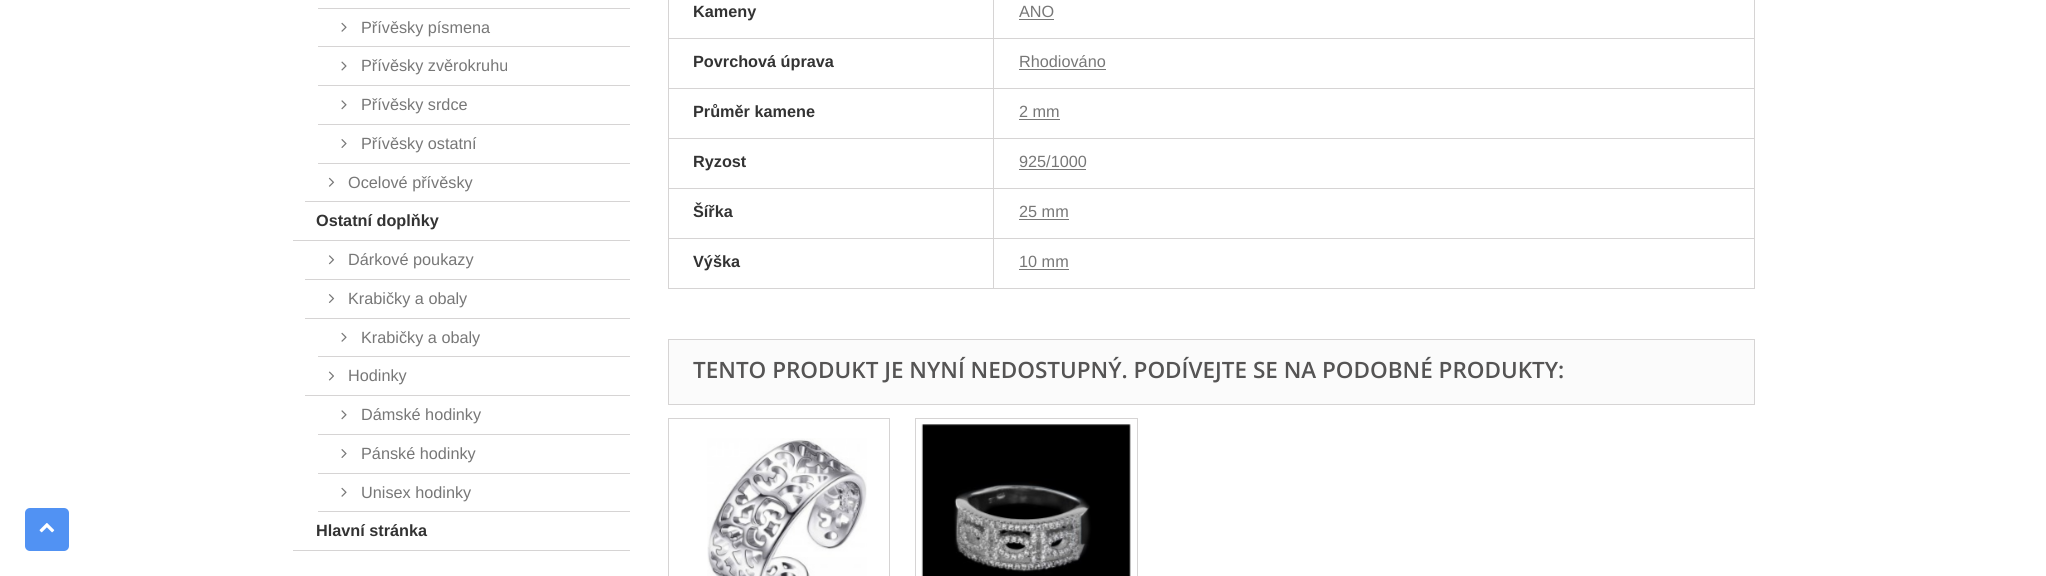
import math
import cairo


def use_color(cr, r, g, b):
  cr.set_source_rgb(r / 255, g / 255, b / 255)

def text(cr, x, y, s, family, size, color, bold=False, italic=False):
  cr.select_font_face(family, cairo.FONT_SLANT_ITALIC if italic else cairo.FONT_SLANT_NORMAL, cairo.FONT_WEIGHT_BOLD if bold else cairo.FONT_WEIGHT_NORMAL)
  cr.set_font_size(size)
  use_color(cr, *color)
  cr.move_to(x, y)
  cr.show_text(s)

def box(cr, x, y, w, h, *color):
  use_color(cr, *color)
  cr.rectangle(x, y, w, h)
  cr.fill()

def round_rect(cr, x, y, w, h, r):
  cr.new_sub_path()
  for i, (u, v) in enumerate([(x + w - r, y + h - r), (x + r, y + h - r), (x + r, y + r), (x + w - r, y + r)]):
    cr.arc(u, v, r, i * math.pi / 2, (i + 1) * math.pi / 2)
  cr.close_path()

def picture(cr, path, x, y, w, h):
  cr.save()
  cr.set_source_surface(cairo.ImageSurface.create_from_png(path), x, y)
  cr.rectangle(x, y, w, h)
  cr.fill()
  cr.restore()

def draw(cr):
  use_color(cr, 255, 255, 255)
  cr.paint()
  use_color(cr, 81, 146, 243)
  round_rect(cr, 25, 508, 44, 43, 5)
  cr.fill()
  picture(cr, "img_01.png", 39, 523, 16, 10)
  box(cr, 318, 8, 312, 1, 214, 212, 212)
  box(cr, 318, 46, 312, 1, 214, 212, 212)
  picture(cr, "img_02.png", 341, 22, 6, 10)
  box(cr, 318, 85, 312, 1, 214, 212, 212)
  picture(cr, "img_03.png", 341, 61, 6, 10)
  box(cr, 318, 124, 312, 1, 214, 212, 212)
  picture(cr, "img_04.png", 341, 100, 6, 10)
  box(cr, 318, 163, 312, 1, 214, 212, 212)
  picture(cr, "img_05.png", 341, 139, 6, 9)
  box(cr, 305, 201, 325, 1, 214, 212, 212)
  picture(cr, "img_06.png", 328, 177, 7, 10)
  box(cr, 293, 240, 337, 1, 214, 212, 212)
  box(cr, 305, 279, 325, 1, 214, 212, 212)
  picture(cr, "img_07.png", 328, 255, 7, 10)
  box(cr, 305, 318, 325, 1, 214, 212, 212)
  picture(cr, "img_08.png", 328, 294, 7, 9)
  box(cr, 318, 356, 312, 1, 214, 212, 212)
  picture(cr, "img_02.png", 341, 332, 6, 10)
  box(cr, 305, 395, 325, 1, 214, 212, 212)
  picture(cr, "img_09.png", 328, 371, 6, 10)
  box(cr, 318, 434, 312, 1, 214, 212, 212)
  picture(cr, "img_04.png", 341, 410, 6, 10)
  box(cr, 318, 473, 312, 1, 214, 212, 212)
  picture(cr, "img_05.png", 341, 449, 6, 9)
  box(cr, 318, 511, 312, 1, 214, 212, 212)
  picture(cr, "img_02.png", 341, 487, 6, 10)
  box(cr, 293, 550, 337, 1, 214, 212, 212)
  box(cr, 1754, 0, 1, 289, 214, 212, 212)
  box(cr, 668, 288, 1087, 1, 214, 212, 212)
  box(cr, 668, 0, 1, 289, 214, 212, 212)
  box(cr, 1019, 19, 35, 1, 119, 119, 119)
  box(cr, 668, 38, 1087, 1, 214, 212, 212)
  box(cr, 1019, 69, 87, 1, 119, 119, 119)
  box(cr, 668, 88, 1087, 1, 214, 212, 212)
  box(cr, 1019, 119, 41, 1, 119, 119, 119)
  box(cr, 668, 138, 1087, 1, 214, 212, 212)
  box(cr, 1019, 169, 67, 1, 119, 119, 119)
  box(cr, 668, 188, 1087, 1, 214, 212, 212)
  box(cr, 1019, 219, 50, 1, 119, 119, 119)
  box(cr, 668, 238, 1087, 1, 214, 212, 212)
  box(cr, 993, 0, 1, 289, 214, 212, 212)
  box(cr, 1019, 269, 50, 1, 119, 119, 119)
  use_color(cr, 251, 251, 251)
  cr.rectangle(668.5, 339.5, 1086, 65)
  cr.fill_preserve()
  use_color(cr, 214, 212, 212)
  cr.set_line_width(1)
  cr.stroke()
  cr.rectangle(668.5, 418.5, 221, 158)
  cr.stroke()
  picture(cr, "img_10.png", 707, 438, 160, 138)
  cr.rectangle(915.5, 418.5, 222, 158)
  cr.stroke()
  picture(cr, "img_11.png", 921, 424, 210, 152)
  text(cr, 361, 33, "Přívěsky písmena", "Liberation Sans", 16.25, (119, 119, 119))
  text(cr, 361, 71, "Přívěsky zvěrokruhu", "Liberation Sans", 16.25, (119, 119, 119))
  text(cr, 361, 110, "Přívěsky srdce", "Liberation Sans", 16.25, (119, 119, 119))
  text(cr, 361, 149, "Přívěsky ostatní", "Liberation Sans", 16.25, (119, 119, 119))
  text(cr, 348, 188, "Ocelové přívěsky", "Liberation Sans", 16.25, (119, 119, 119))
  text(cr, 316, 226, "Ostatní doplňky", "Liberation Sans", 16.25, (51, 51, 51), bold=True)
  text(cr, 348, 265, "Dárkové poukazy", "Liberation Sans", 16.25, (119, 119, 119))
  text(cr, 348, 304, "Krabičky a obaly", "Liberation Sans", 16.25, (119, 119, 119))
  text(cr, 361, 343, "Krabičky a obaly", "Liberation Sans", 16.25, (119, 119, 119))
  text(cr, 348, 381, "Hodinky", "Liberation Sans", 16.25, (119, 119, 119))
  text(cr, 361, 420, "Dámské hodinky", "Liberation Sans", 16.25, (119, 119, 119))
  text(cr, 361, 459, "Pánské hodinky", "Liberation Sans", 16.25, (119, 119, 119))
  text(cr, 361, 498, "Unisex hodinky", "Liberation Sans", 16.25, (119, 119, 119))
  text(cr, 316, 536, "Hlavní stránka", "Liberation Sans", 16.25, (51, 51, 51), bold=True)
  text(cr, 693, 17, "Kameny", "Liberation Sans", 16.25, (51, 51, 51), bold=True)
  text(cr, 1019, 17, "ANO", "Liberation Sans", 16.25, (119, 119, 119))
  text(cr, 693, 67, "Povrchová úprava", "Liberation Sans", 16.25, (51, 51, 51), bold=True)
  text(cr, 1019, 67, "Rhodiováno", "Liberation Sans", 16.25, (119, 119, 119))
  text(cr, 693, 117, "Průměr kamene", "Liberation Sans", 16.25, (51, 51, 51), bold=True)
  text(cr, 1019, 117, "2 mm", "Liberation Sans", 16.25, (119, 119, 119))
  text(cr, 693, 167, "Ryzost", "Liberation Sans", 16.25, (51, 51, 51), bold=True)
  text(cr, 1019, 167, "925/1000", "Liberation Sans", 16.25, (119, 119, 119))
  text(cr, 693, 217, "Šířka", "Liberation Sans", 16.25, (51, 51, 51), bold=True)
  text(cr, 1019, 217, "25 mm", "Liberation Sans", 16.25, (119, 119, 119))
  text(cr, 693, 267, "Výška", "Liberation Sans", 16.25, (51, 51, 51), bold=True)
  text(cr, 1019, 267, "10 mm", "Liberation Sans", 16.25, (119, 119, 119))
  text(cr, 693, 378, "TENTO PRODUKT JE NYNÍ NEDOSTUPNÝ. PODÍVEJTE SE NA PODOBNÉ PRODUKTY:", "Open Sans SemiBold", 22.5, (85, 84, 84))


surface = cairo.ImageSurface(cairo.FORMAT_RGB24, 2046, 576)
cr = cairo.Context(surface)
options = cairo.FontOptions()
options.set_hint_metrics(cairo.HINT_METRICS_OFF)
options.set_hint_style(cairo.HINT_STYLE_NONE)
cr.set_font_options(options)
cr.set_miter_limit(4)
draw(cr)
surface.write_to_png("out.png")
